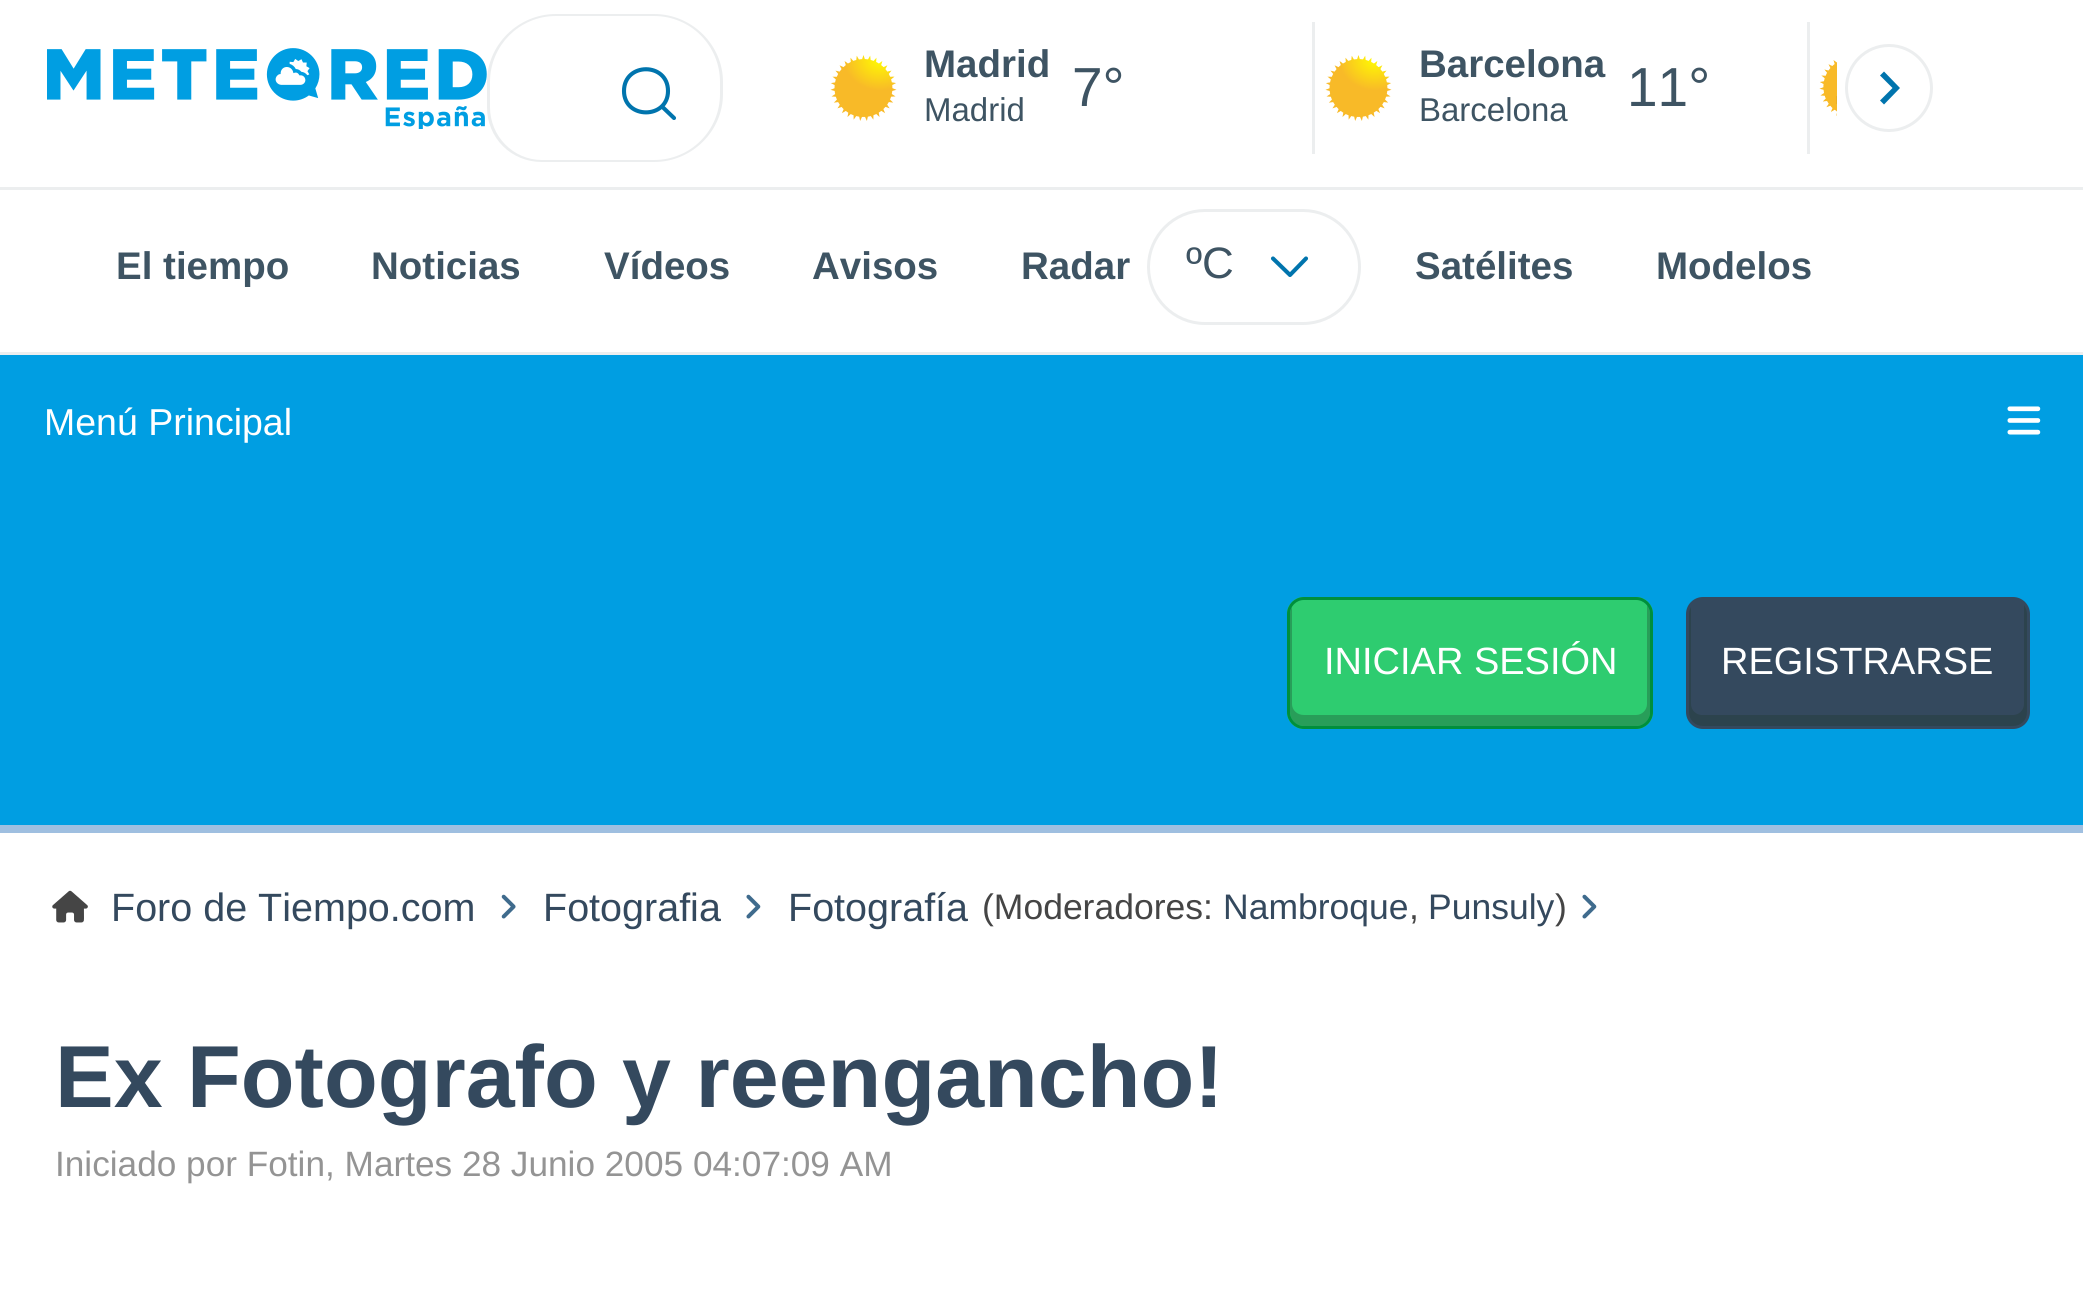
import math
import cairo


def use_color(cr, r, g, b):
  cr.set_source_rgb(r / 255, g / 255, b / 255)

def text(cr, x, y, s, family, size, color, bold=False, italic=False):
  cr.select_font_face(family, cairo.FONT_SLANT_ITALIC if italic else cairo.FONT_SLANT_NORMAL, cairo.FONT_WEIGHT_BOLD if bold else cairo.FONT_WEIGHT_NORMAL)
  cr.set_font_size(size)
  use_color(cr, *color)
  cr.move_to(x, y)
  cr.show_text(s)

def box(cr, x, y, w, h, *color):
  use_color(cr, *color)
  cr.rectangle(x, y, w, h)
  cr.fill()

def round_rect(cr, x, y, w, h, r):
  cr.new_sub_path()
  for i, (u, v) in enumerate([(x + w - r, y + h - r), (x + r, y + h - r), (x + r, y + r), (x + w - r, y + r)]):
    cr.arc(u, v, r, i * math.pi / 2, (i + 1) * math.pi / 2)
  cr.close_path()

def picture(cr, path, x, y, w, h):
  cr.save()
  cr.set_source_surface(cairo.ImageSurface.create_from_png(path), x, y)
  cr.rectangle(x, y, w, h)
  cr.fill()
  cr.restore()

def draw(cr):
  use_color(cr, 255, 255, 255)
  cr.paint()
  box(cr, 0, 187, 2083, 3, 236, 238, 239)
  picture(cr, "img_01.png", 47, 48, 440, 81)
  cr.set_fill_rule(cairo.FILL_RULE_EVEN_ODD)
  cr.new_path()
  cr.move_to(556, 14)
  cr.line_to(578, 14)
  cr.line_to(578, 162)
  cr.line_to(542, 162)
  cr.curve_to(511, 162, 487, 138, 487, 107)
  cr.line_to(487, 82)
  cr.curve_to(487, 45, 518, 14, 556, 14)
  cr.close_path()
  cr.move_to(556, 16)
  cr.line_to(578, 16)
  cr.line_to(578, 160)
  cr.line_to(542, 160)
  cr.curve_to(513, 160, 490, 136, 490, 107)
  cr.line_to(490, 82)
  cr.curve_to(490, 46, 519, 16, 556, 16)
  cr.close_path()
  cr.fill()
  cr.new_path()
  cr.move_to(578, 14)
  cr.line_to(654, 14)
  cr.curve_to(692, 14, 723, 45, 723, 82)
  cr.line_to(723, 94)
  cr.curve_to(723, 131, 692, 162, 654, 162)
  cr.line_to(578, 162)
  cr.close_path()
  cr.move_to(578, 16)
  cr.line_to(654, 16)
  cr.curve_to(691, 16, 720, 46, 720, 82)
  cr.line_to(720, 94)
  cr.curve_to(720, 130, 691, 160, 654, 160)
  cr.line_to(578, 160)
  cr.close_path()
  cr.fill()
  cr.new_path()
  cr.move_to(674, 118)
  cr.line_to(662, 106.5)
  cr.move_to(668, 91)
  cr.curve_to(668, 119.5, 624, 119.5, 624, 91)
  cr.curve_to(624, 62, 668, 62, 668, 91)
  cr.close_path()
  use_color(cr, 0, 116, 173)
  cr.set_line_width(4.1)
  cr.set_line_cap(cairo.LINE_CAP_ROUND)
  cr.set_line_join(cairo.LINE_JOIN_ROUND)
  cr.stroke()
  picture(cr, "img_02.png", 830, 55, 67, 66)
  box(cr, 1312, 22, 3, 132, 236, 238, 239)
  picture(cr, "img_02.png", 1325, 55, 67, 66)
  box(cr, 1807, 22, 3, 132, 236, 238, 239)
  picture(cr, "img_03.png", 1819, 60, 18, 56)
  cr.arc(1889, 88, 42.5, 0, 2 * math.pi)
  cr.set_line_width(3)
  cr.set_line_cap(cairo.LINE_CAP_BUTT)
  cr.set_line_join(cairo.LINE_JOIN_MITER)
  cr.stroke()
  use_color(cr, 0, 116, 173)
  cr.set_fill_rule(cairo.FILL_RULE_WINDING)
  cr.new_path()
  cr.move_to(1884, 71.5)
  cr.line_to(1880, 75.5)
  cr.line_to(1892.5, 88)
  cr.line_to(1880, 100.5)
  cr.line_to(1884, 104.5)
  cr.line_to(1900, 88)
  cr.close_path()
  cr.fill()
  box(cr, 0, 352, 2083, 3, 236, 238, 239)
  round_rect(cr, 1148.5, 210.5, 211, 113, 56.5)
  cr.stroke()
  cr.new_path()
  cr.move_to(1273, 258.5)
  cr.line_to(1290, 275)
  cr.line_to(1306, 258.5)
  use_color(cr, 0, 116, 173)
  cr.set_line_width(4.1)
  cr.set_line_cap(cairo.LINE_CAP_ROUND)
  cr.set_line_join(cairo.LINE_JOIN_ROUND)
  cr.stroke()
  box(cr, 0, 355, 2083, 470, 0, 158, 226)
  picture(cr, "img_04.png", 2007, 406, 34, 29)
  box(cr, 0, 825, 2083, 8, 159, 191, 224)
  use_color(cr, 46, 204, 112)
  round_rect(cr, 1287, 597, 366, 132, 17)
  cr.fill()
  use_color(cr, 40, 158, 89)
  cr.new_path()
  cr.move_to(1292, 607)
  cr.curve_to(1291, 609, 1290, 611, 1290, 614)
  cr.line_to(1290, 712)
  cr.curve_to(1290, 720, 1296, 726, 1304, 726)
  cr.line_to(1636, 726)
  cr.curve_to(1644, 726, 1650, 720, 1650, 712)
  cr.line_to(1650, 614)
  cr.curve_to(1650, 611, 1649, 608, 1647, 605)
  cr.line_to(1647, 704)
  cr.curve_to(1647, 710, 1642, 715, 1636, 715)
  cr.line_to(1304, 715)
  cr.curve_to(1297, 715, 1292, 710, 1292, 704)
  cr.close_path()
  cr.fill()
  round_rect(cr, 1288.5, 598.5, 363, 129, 15.5)
  use_color(cr, 0, 143, 60)
  cr.set_line_width(3)
  cr.set_line_cap(cairo.LINE_CAP_BUTT)
  cr.set_line_join(cairo.LINE_JOIN_MITER)
  cr.stroke()
  use_color(cr, 52, 73, 94)
  round_rect(cr, 1686, 597, 344, 132, 17)
  cr.fill()
  use_color(cr, 44, 67, 77)
  cr.new_path()
  cr.move_to(1691, 607)
  cr.curve_to(1690, 609, 1689, 611, 1689, 614)
  cr.line_to(1689, 712)
  cr.curve_to(1689, 720, 1695, 726, 1703, 726)
  cr.line_to(2013, 726)
  cr.curve_to(2021, 726, 2027, 720, 2027, 712)
  cr.line_to(2027, 614)
  cr.curve_to(2027, 611, 2026, 608, 2024, 605)
  cr.line_to(2024, 704)
  cr.curve_to(2024, 710, 2019, 715, 2013, 715)
  cr.line_to(1702, 715)
  cr.curve_to(1696, 715, 1691, 710, 1691, 704)
  cr.close_path()
  cr.fill()
  picture(cr, "img_05.png", 52, 890, 36, 33)
  picture(cr, "img_06.png", 501, 894, 15, 25)
  picture(cr, "img_07.png", 746, 894, 15, 25)
  picture(cr, "img_07.png", 1582, 894, 15, 25)
  text(cr, 924, 77, "Madrid", "Liberation Sans", 38.5, (62, 84, 99), bold=True)
  text(cr, 924, 121, "Madrid", "Liberation Sans", 33, (62, 84, 99))
  text(cr, 1072, 106, "7°", "Liberation Sans", 55, (62, 84, 99))
  text(cr, 1419, 77, "Barcelona", "Liberation Sans", 38.5, (62, 84, 99), bold=True)
  text(cr, 1419, 121, "Barcelona", "Liberation Sans", 33, (62, 84, 99))
  text(cr, 1627, 106, "11°", "Liberation Sans", 55, (62, 84, 99))
  text(cr, 1186, 278, "ºC", "Liberation Sans", 44, (62, 84, 99))
  text(cr, 116, 279, "El tiempo", "Liberation Sans", 38.5, (62, 84, 99), bold=True)
  text(cr, 371, 279, "Noticias", "Liberation Sans", 38.5, (62, 84, 99), bold=True)
  text(cr, 604, 279, "Vídeos", "Liberation Sans", 38.5, (62, 84, 99), bold=True)
  text(cr, 812, 279, "Avisos", "Liberation Sans", 38.5, (62, 84, 99), bold=True)
  text(cr, 1021, 279, "Radar", "Liberation Sans", 38.5, (62, 84, 99), bold=True)
  text(cr, 1415, 279, "Satélites", "Liberation Sans", 38.5, (62, 84, 99), bold=True)
  text(cr, 1656, 279, "Modelos", "Liberation Sans", 38.5, (62, 84, 99), bold=True)
  text(cr, 44, 435, "Menú Principal", "Liberation Sans", 37.5, (255, 255, 255))
  text(cr, 1324, 674, "INICIAR SESIÓN", "Liberation Sans", 38, (255, 255, 255))
  text(cr, 1721, 674, "REGISTRARSE", "Liberation Sans", 38, (255, 255, 255))
  text(cr, 111, 921, "Foro de Tiempo.com", "Liberation Sans", 39.5, (52, 73, 94))
  text(cr, 543, 921, "Fotografia", "Liberation Sans", 39.5, (52, 73, 94))
  text(cr, 788, 921, "Fotografía", "Liberation Sans", 39.5, (52, 73, 94))
  text(cr, 982, 919, "(Moderadores:", "Liberation Sans", 35.5, (69, 69, 69))
  text(cr, 1223, 919, "Nambroque", "Liberation Sans", 35.5, (52, 73, 94))
  text(cr, 1409, 919, ",", "Liberation Sans", 35.5, (69, 69, 69))
  text(cr, 1428, 919, "Punsuly", "Liberation Sans", 35.5, (52, 73, 94))
  text(cr, 1555, 919, ")", "Liberation Sans", 35.5, (69, 69, 69))
  text(cr, 55, 1107, "Ex Fotografo y reengancho!", "Liberation Sans", 88, (52, 73, 94), bold=True)
  text(cr, 55, 1176, "Iniciado por Fotin, Martes 28 Junio 2005 04:07:09 AM", "Liberation Sans", 35.2, (148, 148, 148))


surface = cairo.ImageSurface(cairo.FORMAT_RGB24, 2083, 1301)
cr = cairo.Context(surface)
options = cairo.FontOptions()
options.set_hint_metrics(cairo.HINT_METRICS_OFF)
options.set_hint_style(cairo.HINT_STYLE_NONE)
cr.set_font_options(options)
cr.set_miter_limit(4)
draw(cr)
surface.write_to_png("out.png")
